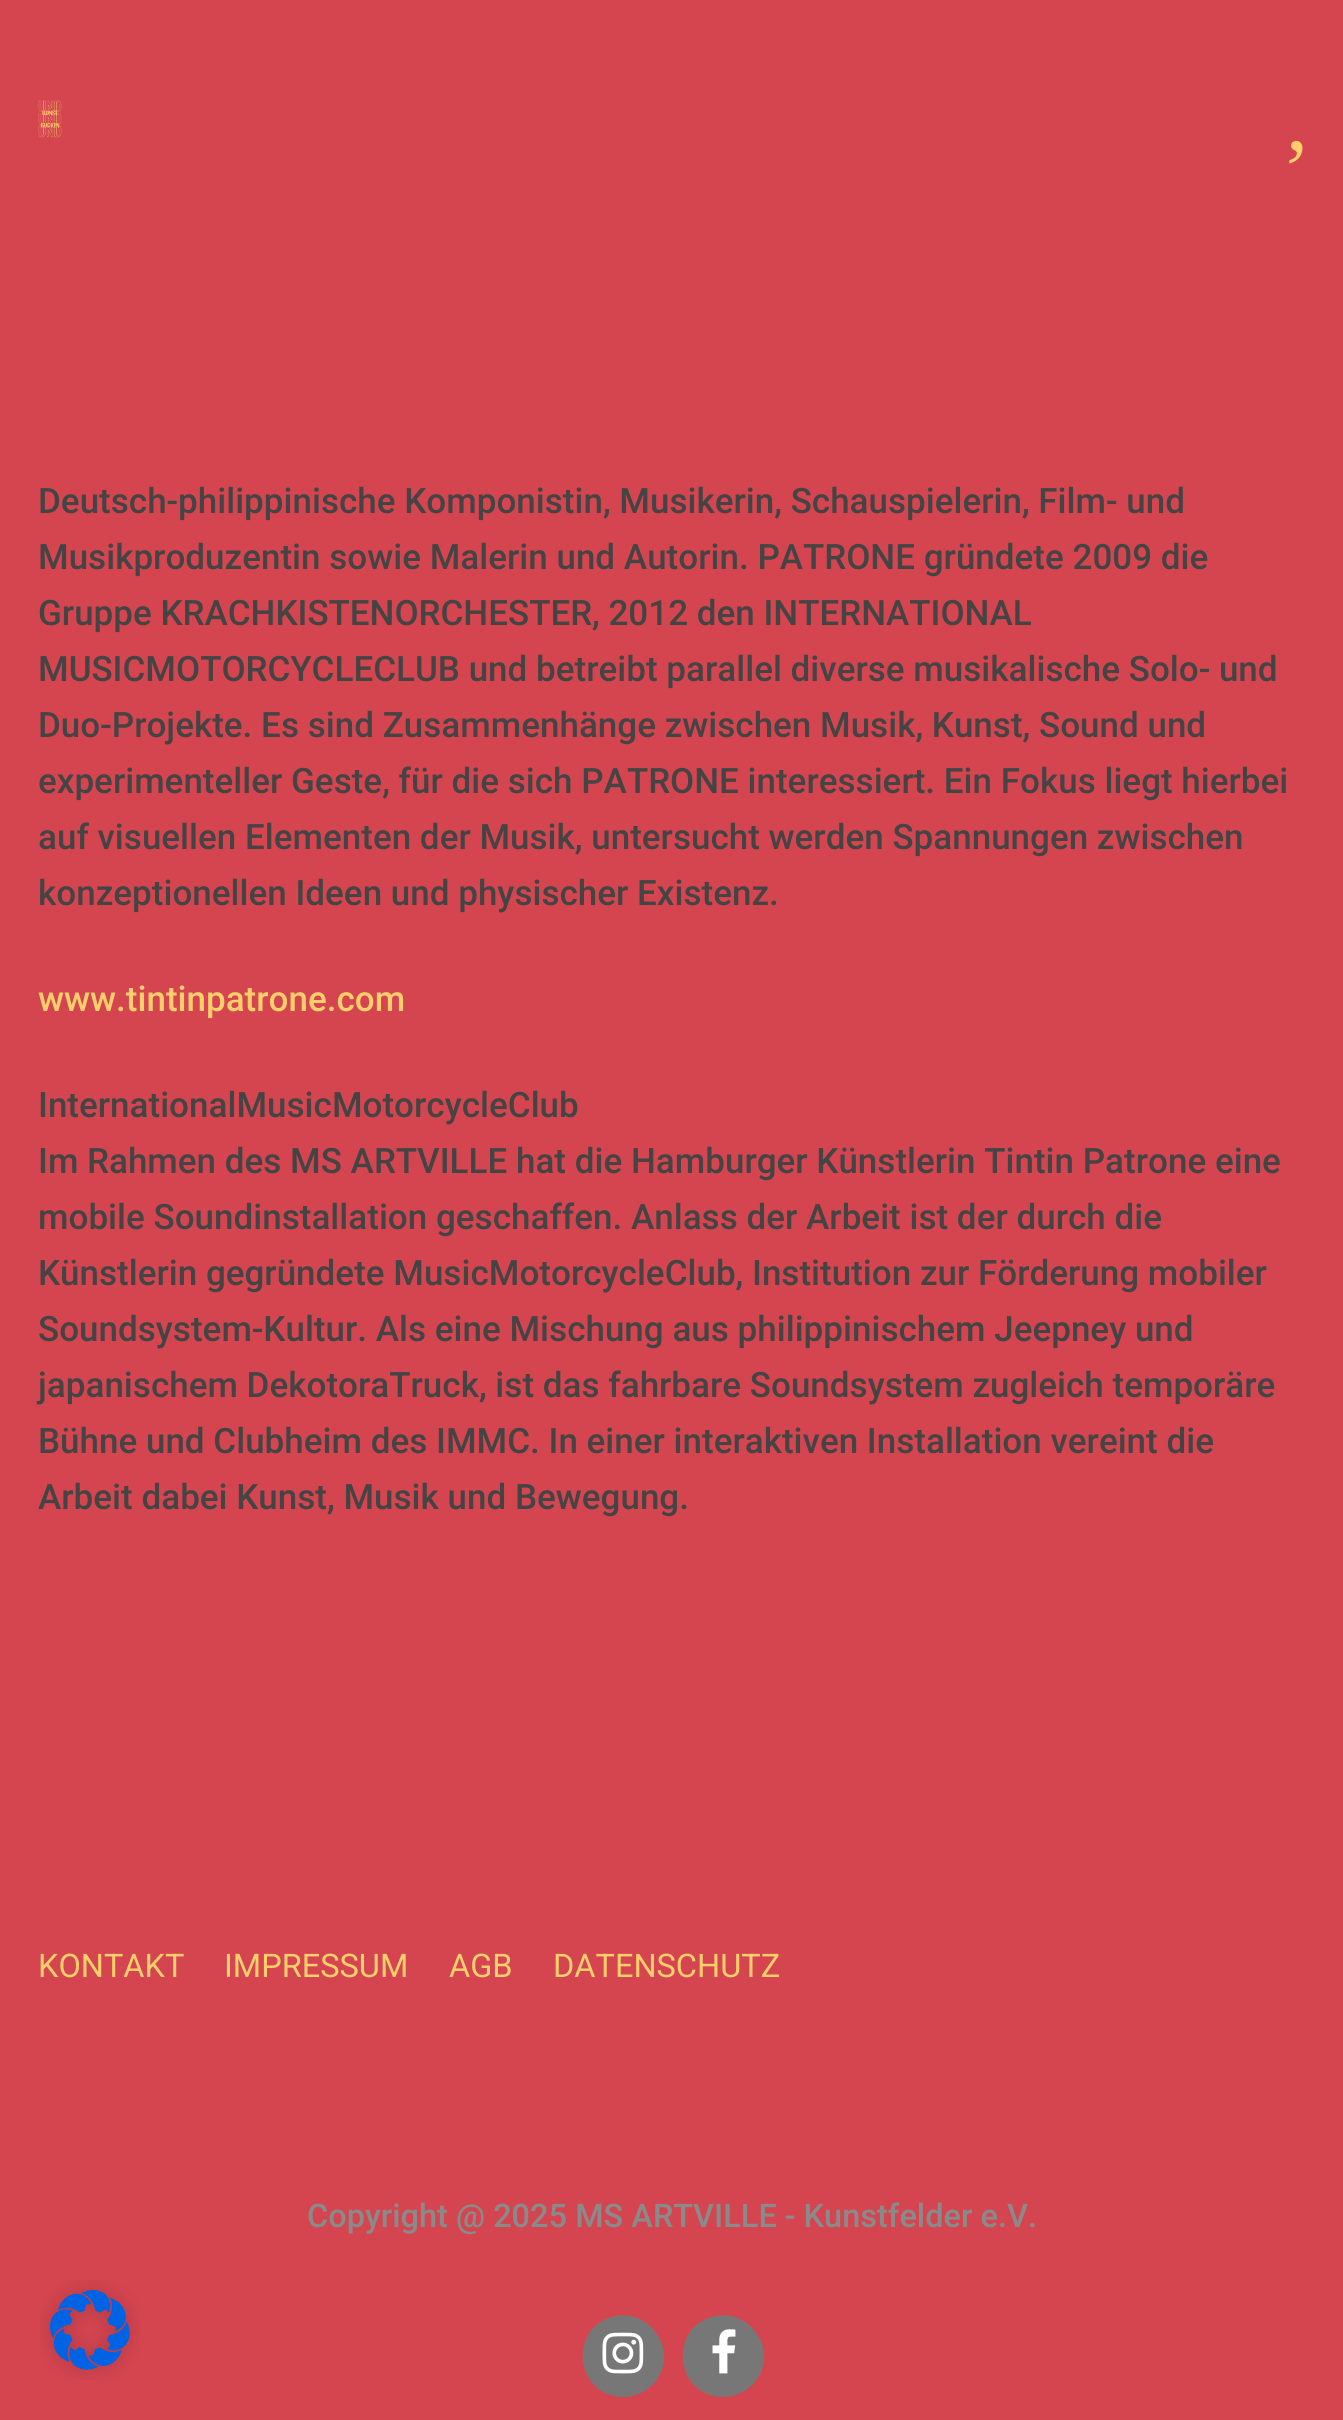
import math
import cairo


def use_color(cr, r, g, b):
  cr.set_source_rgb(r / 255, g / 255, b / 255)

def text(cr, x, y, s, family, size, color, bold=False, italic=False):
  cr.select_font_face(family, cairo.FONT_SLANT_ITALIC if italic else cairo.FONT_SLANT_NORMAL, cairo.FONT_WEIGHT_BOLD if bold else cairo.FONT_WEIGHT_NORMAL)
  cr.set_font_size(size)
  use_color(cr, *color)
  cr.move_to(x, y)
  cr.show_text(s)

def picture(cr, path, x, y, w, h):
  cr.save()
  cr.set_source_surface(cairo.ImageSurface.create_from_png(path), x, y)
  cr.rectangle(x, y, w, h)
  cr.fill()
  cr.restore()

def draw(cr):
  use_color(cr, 213, 69, 80)
  cr.paint()
  picture(cr, "img_01.png", 38, 100, 24, 38)
  use_color(cr, 119, 119, 119)
  cr.new_path()
  cr.move_to(658, 2336)
  cr.curve_to(663, 2343, 664, 2351, 664, 2359)
  cr.curve_to(661, 2399, 608, 2411, 588, 2377)
  cr.curve_to(584, 2369, 582, 2361, 583, 2353)
  cr.curve_to(585, 2313, 638, 2301, 658, 2336)
  cr.close_path()
  cr.fill()
  picture(cr, "img_02.png", 602, 2332, 42, 42)
  cr.new_path()
  cr.move_to(758, 2336)
  cr.curve_to(763, 2343, 764, 2351, 764, 2359)
  cr.curve_to(761, 2399, 708, 2411, 688, 2377)
  cr.curve_to(684, 2369, 682, 2361, 683, 2353)
  cr.curve_to(685, 2313, 738, 2301, 758, 2336)
  cr.close_path()
  cr.fill()
  picture(cr, "img_03.png", 712, 2329, 24, 45)
  picture(cr, "img_04.png", 40, 2280, 100, 100)
  text(cr, 1286, 150, ",", "Liberation Serif", 88, (254, 207, 107))
  text(cr, 38, 513, "Deutsch-philippinische Komponistin, Musikerin, Schauspielerin, Film- und", "Roboto Medium", 35, (68, 68, 68))
  text(cr, 38, 569, "Musikproduzentin sowie Malerin und Autorin. PATRONE gründete 2009 die", "Roboto Medium", 35, (68, 68, 68))
  text(cr, 38, 625, "Gruppe KRACHKISTENORCHESTER, 2012 den INTERNATIONAL", "Roboto Medium", 35, (68, 68, 68))
  text(cr, 38, 681, "MUSICMOTORCYCLECLUB und betreibt parallel diverse musikalische Solo- und", "Roboto Medium", 35, (68, 68, 68))
  text(cr, 38, 737, "Duo-Projekte. Es sind Zusammenhänge zwischen Musik, Kunst, Sound und", "Roboto Medium", 35, (68, 68, 68))
  text(cr, 38, 793, "experimenteller Geste, für die sich PATRONE interessiert. Ein Fokus liegt hierbei", "Roboto Medium", 35, (68, 68, 68))
  text(cr, 38, 849, "auf visuellen Elementen der Musik, untersucht werden Spannungen zwischen", "Roboto Medium", 35, (68, 68, 68))
  text(cr, 38, 905, "konzeptionellen Ideen und physischer Existenz.", "Roboto Medium", 35, (68, 68, 68))
  text(cr, 38, 1011, "www.tintinpatrone.com", "Roboto Medium", 35, (254, 207, 107))
  text(cr, 38, 1117, "InternationalMusicMotorcycleClub", "Roboto Medium", 35, (68, 68, 68))
  text(cr, 38, 1173, "Im Rahmen des MS ARTVILLE hat die Hamburger Künstlerin Tintin Patrone eine", "Roboto Medium", 35, (68, 68, 68))
  text(cr, 38, 1229, "mobile Soundinstallation geschaffen. Anlass der Arbeit ist der durch die", "Roboto Medium", 35, (68, 68, 68))
  text(cr, 38, 1285, "Künstlerin gegründete MusicMotorcycleClub, Institution zur Förderung mobiler", "Roboto Medium", 35, (68, 68, 68))
  text(cr, 38, 1341, "Soundsystem-Kultur. Als eine Mischung aus philippinischem Jeepney und", "Roboto Medium", 35, (68, 68, 68))
  text(cr, 38, 1397, "japanischem DekotoraTruck, ist das fahrbare Soundsystem zugleich temporäre", "Roboto Medium", 35, (68, 68, 68))
  text(cr, 38, 1453, "Bühne und Clubheim des IMMC. In einer interaktiven Installation vereint die", "Roboto Medium", 35, (68, 68, 68))
  text(cr, 38, 1509, "Arbeit dabei Kunst, Musik und Bewegung.", "Roboto Medium", 35, (68, 68, 68))
  text(cr, 38, 1977, "KONTAKT", "Roboto", 32.5, (254, 207, 107))
  text(cr, 224, 1977, "IMPRESSUM", "Roboto", 32.5, (254, 207, 107))
  text(cr, 449, 1977, "AGB", "Roboto", 32.5, (254, 207, 107))
  text(cr, 553, 1977, "DATENSCHUTZ", "Roboto", 32.5, (254, 207, 107))
  text(cr, 307, 2227, "Copyright @ 2025 MS ARTVILLE - Kunstfelder e.V.", "Roboto Medium", 32.5, (138, 138, 138))


surface = cairo.ImageSurface(cairo.FORMAT_RGB24, 1343, 2420)
cr = cairo.Context(surface)
options = cairo.FontOptions()
options.set_hint_metrics(cairo.HINT_METRICS_OFF)
options.set_hint_style(cairo.HINT_STYLE_NONE)
cr.set_font_options(options)
cr.set_miter_limit(4)
draw(cr)
surface.write_to_png("out.png")
